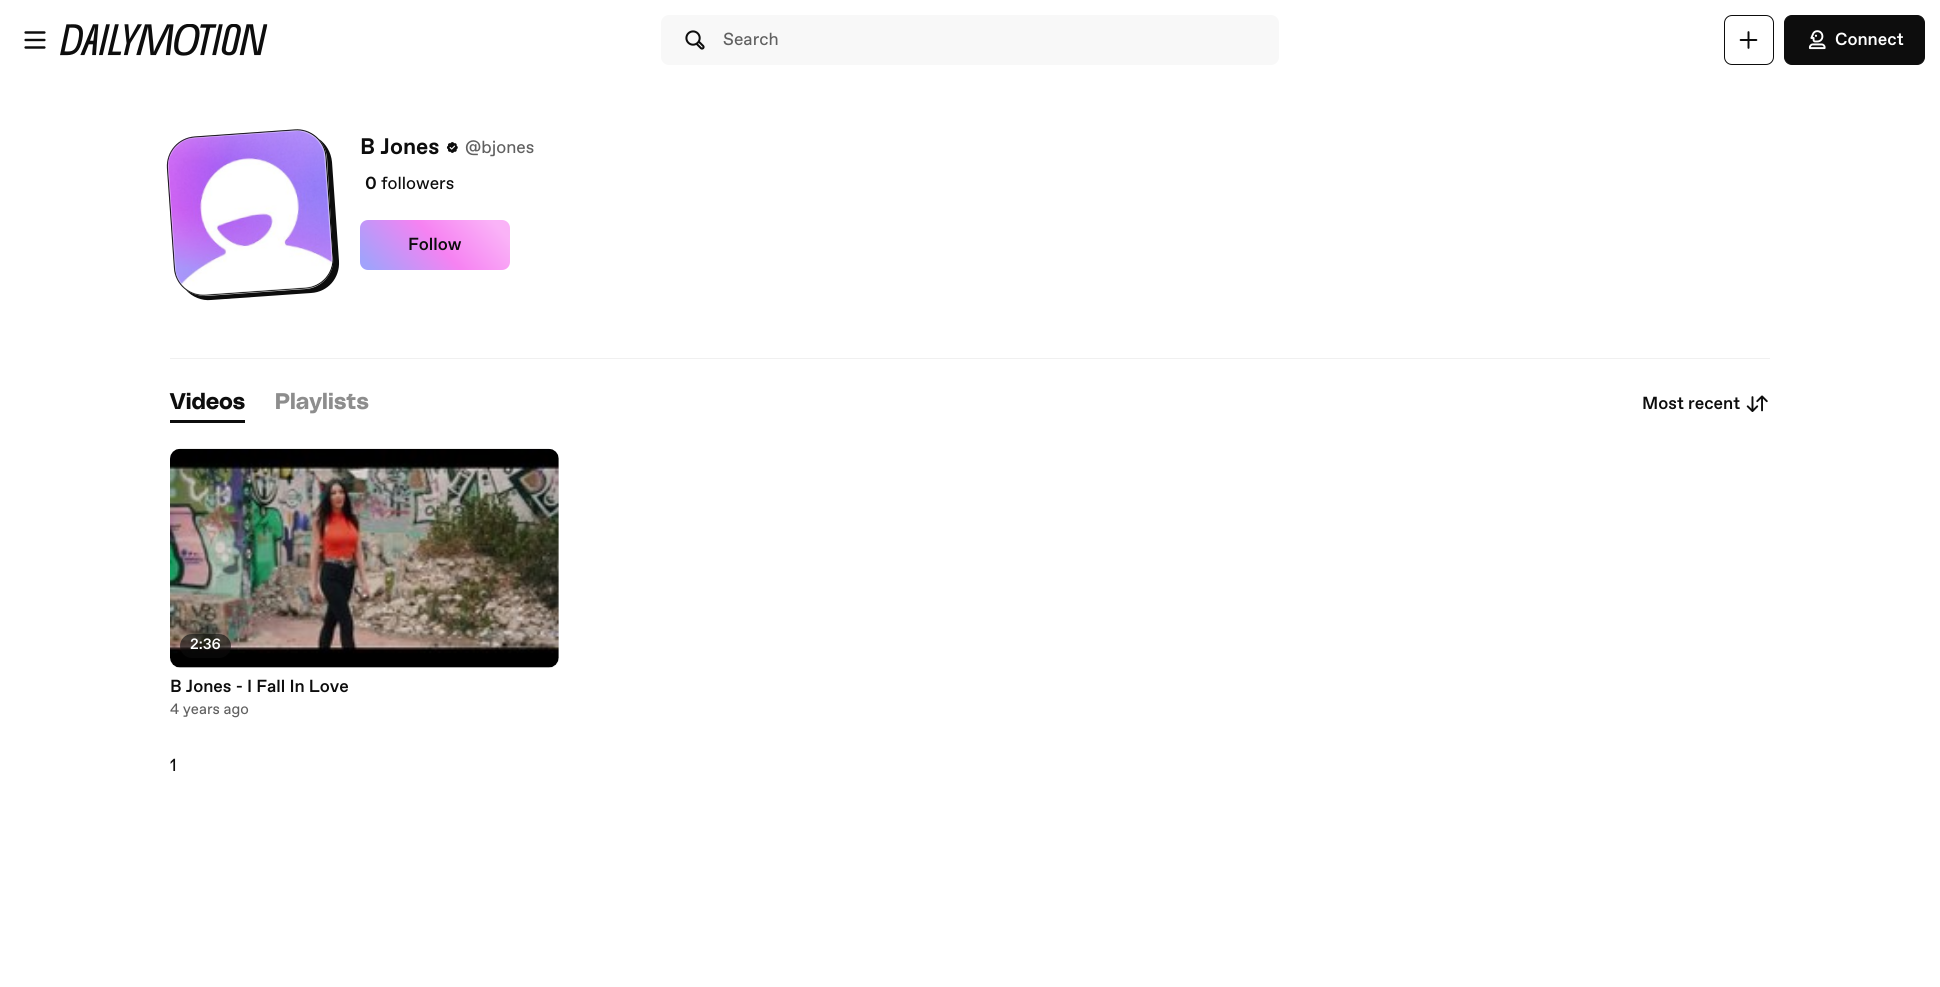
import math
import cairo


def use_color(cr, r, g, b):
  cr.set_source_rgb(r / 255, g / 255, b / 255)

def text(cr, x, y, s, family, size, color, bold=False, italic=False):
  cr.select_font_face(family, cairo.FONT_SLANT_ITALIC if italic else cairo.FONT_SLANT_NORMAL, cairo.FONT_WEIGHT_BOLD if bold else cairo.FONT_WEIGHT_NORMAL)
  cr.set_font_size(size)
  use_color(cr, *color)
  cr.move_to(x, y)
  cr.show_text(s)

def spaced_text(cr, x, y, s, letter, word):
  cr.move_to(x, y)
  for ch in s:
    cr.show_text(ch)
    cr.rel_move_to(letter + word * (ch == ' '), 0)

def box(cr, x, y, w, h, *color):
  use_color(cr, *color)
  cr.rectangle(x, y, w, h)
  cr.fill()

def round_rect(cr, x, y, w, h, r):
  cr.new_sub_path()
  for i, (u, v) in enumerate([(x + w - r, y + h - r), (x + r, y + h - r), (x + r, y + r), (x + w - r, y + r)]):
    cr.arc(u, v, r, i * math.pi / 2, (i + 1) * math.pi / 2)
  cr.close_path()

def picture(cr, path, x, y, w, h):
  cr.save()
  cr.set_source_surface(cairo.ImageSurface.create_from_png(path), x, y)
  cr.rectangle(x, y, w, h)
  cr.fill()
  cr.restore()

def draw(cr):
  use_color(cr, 255, 255, 255)
  cr.paint()
  picture(cr, "img_01.png", 24, 31, 22, 18)
  picture(cr, "img_02.png", 60, 24, 208, 32)
  use_color(cr, 248, 248, 248)
  round_rect(cr, 661, 15, 618, 50, 8)
  cr.fill()
  picture(cr, "img_03.png", 685, 30, 20, 20)
  round_rect(cr, 1724.5, 15.5, 49, 49, 7.5)
  use_color(cr, 13, 13, 13)
  cr.set_line_width(1)
  cr.stroke()
  picture(cr, "img_04.png", 1739, 31, 19, 18)
  round_rect(cr, 1784.5, 15.5, 140, 49, 7.5)
  cr.fill_preserve()
  cr.stroke()
  picture(cr, "img_05.png", 1808, 30, 18, 20)
  box(cr, 170, 358, 1600, 1, 240, 240, 240)
  use_color(cr, 13, 13, 13)
  cr.new_path()
  cr.move_to(186, 290)
  cr.curve_to(192, 297, 202, 301, 211, 300)
  cr.line_to(311, 293)
  cr.curve_to(328, 292, 340, 278, 339, 261)
  cr.line_to(332, 162)
  cr.curve_to(331, 152, 326, 144, 319, 139)
  cr.curve_to(323, 144, 326, 150, 327, 157)
  cr.line_to(333, 257)
  cr.curve_to(335, 273, 322, 288, 306, 289)
  cr.line_to(206, 296)
  cr.curve_to(199, 296, 192, 294, 186, 290)
  cr.close_path()
  cr.fill()
  cr.new_path()
  cr.move_to(195, 137)
  cr.line_to(294.5, 130)
  cr.curve_to(310.5, 128.5, 325, 141, 326, 157)
  cr.line_to(333, 257)
  cr.curve_to(334, 273, 322, 287, 305.5, 288)
  cr.line_to(206, 295)
  cr.curve_to(189.5, 296.5, 175.5, 284, 174.5, 268)
  cr.line_to(167.5, 168)
  cr.curve_to(166.5, 152, 178.5, 138, 195, 137)
  cr.close_path()
  cr.set_line_width(1.2)
  cr.stroke()
  picture(cr, "img_06.png", 167, 129, 166, 167)
  picture(cr, "img_07.png", 446, 142, 12, 11)
  gradient = cairo.LinearGradient(489, 197, 381, 293)
  gradient.add_color_stop_rgba(0.09, 0.98, 0.702, 0.969, 1)
  gradient.add_color_stop_rgba(0.48, 0.965, 0.51, 0.949, 1)
  gradient.add_color_stop_rgba(0.94, 0.635, 0.635, 0.984, 1)
  cr.set_source(gradient)
  round_rect(cr, 360, 220, 150, 50, 8)
  cr.fill()
  box(cr, 170, 420, 75, 3, 13, 13, 13)
  picture(cr, "img_08.png", 1746, 395, 22, 17)
  use_color(cr, 232, 232, 232)
  round_rect(cr, 170, 449, 389, 219, 10)
  cr.fill()
  picture(cr, "img_09.png", 170, 448, 389, 220)
  cr.set_source_rgba(0.051, 0.051, 0.051, 0.6)
  round_rect(cr, 180, 634, 51, 24, 12)
  cr.fill()
  text(cr, 723, 45, "Search", "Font", 17.5, (96, 96, 96))
  text(cr, 1835, 45, "Connect", "Font Medium", 17.5, (255, 255, 255))
  text(cr, 360, 154, "B Jones", "Font", 22.5, (13, 13, 13), bold=True)
  text(cr, 465, 153, "@bjones", "Font", 17.5, (96, 96, 96))
  text(cr, 365, 189, "0", "Font", 17.5, (13, 13, 13), bold=True)
  text(cr, 381, 189, "followers", "Font", 17.5, (13, 13, 13))
  text(cr, 408, 250, "Follow", "Font Medium", 17.5, (13, 13, 13))
  cr.select_font_face("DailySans", cairo.FONT_SLANT_NORMAL, cairo.FONT_WEIGHT_BOLD)
  cr.set_font_size(22.5)
  spaced_text(cr, 170, 409, "Videos", 0.25, 0)
  use_color(cr, 141, 141, 141)
  spaced_text(cr, 275, 409, "Playlists", 0.25, 0)
  text(cr, 1642, 409, "Most recent", "Font Medium", 17.5, (13, 13, 13))
  text(cr, 190, 649, "2:36", "Font Medium", 15, (255, 255, 255))
  text(cr, 170, 692, "B Jones - I Fall In Love", "Font Medium", 17.5, (13, 13, 13))
  text(cr, 170, 714, "4 years ago", "Font", 15, (96, 96, 96))
  text(cr, 170, 771, "1", "Font", 17.5, (13, 13, 13))


surface = cairo.ImageSurface(cairo.FORMAT_RGB24, 1940, 987)
cr = cairo.Context(surface)
options = cairo.FontOptions()
options.set_hint_metrics(cairo.HINT_METRICS_OFF)
options.set_hint_style(cairo.HINT_STYLE_NONE)
cr.set_font_options(options)
cr.set_miter_limit(4)
draw(cr)
surface.write_to_png("out.png")
